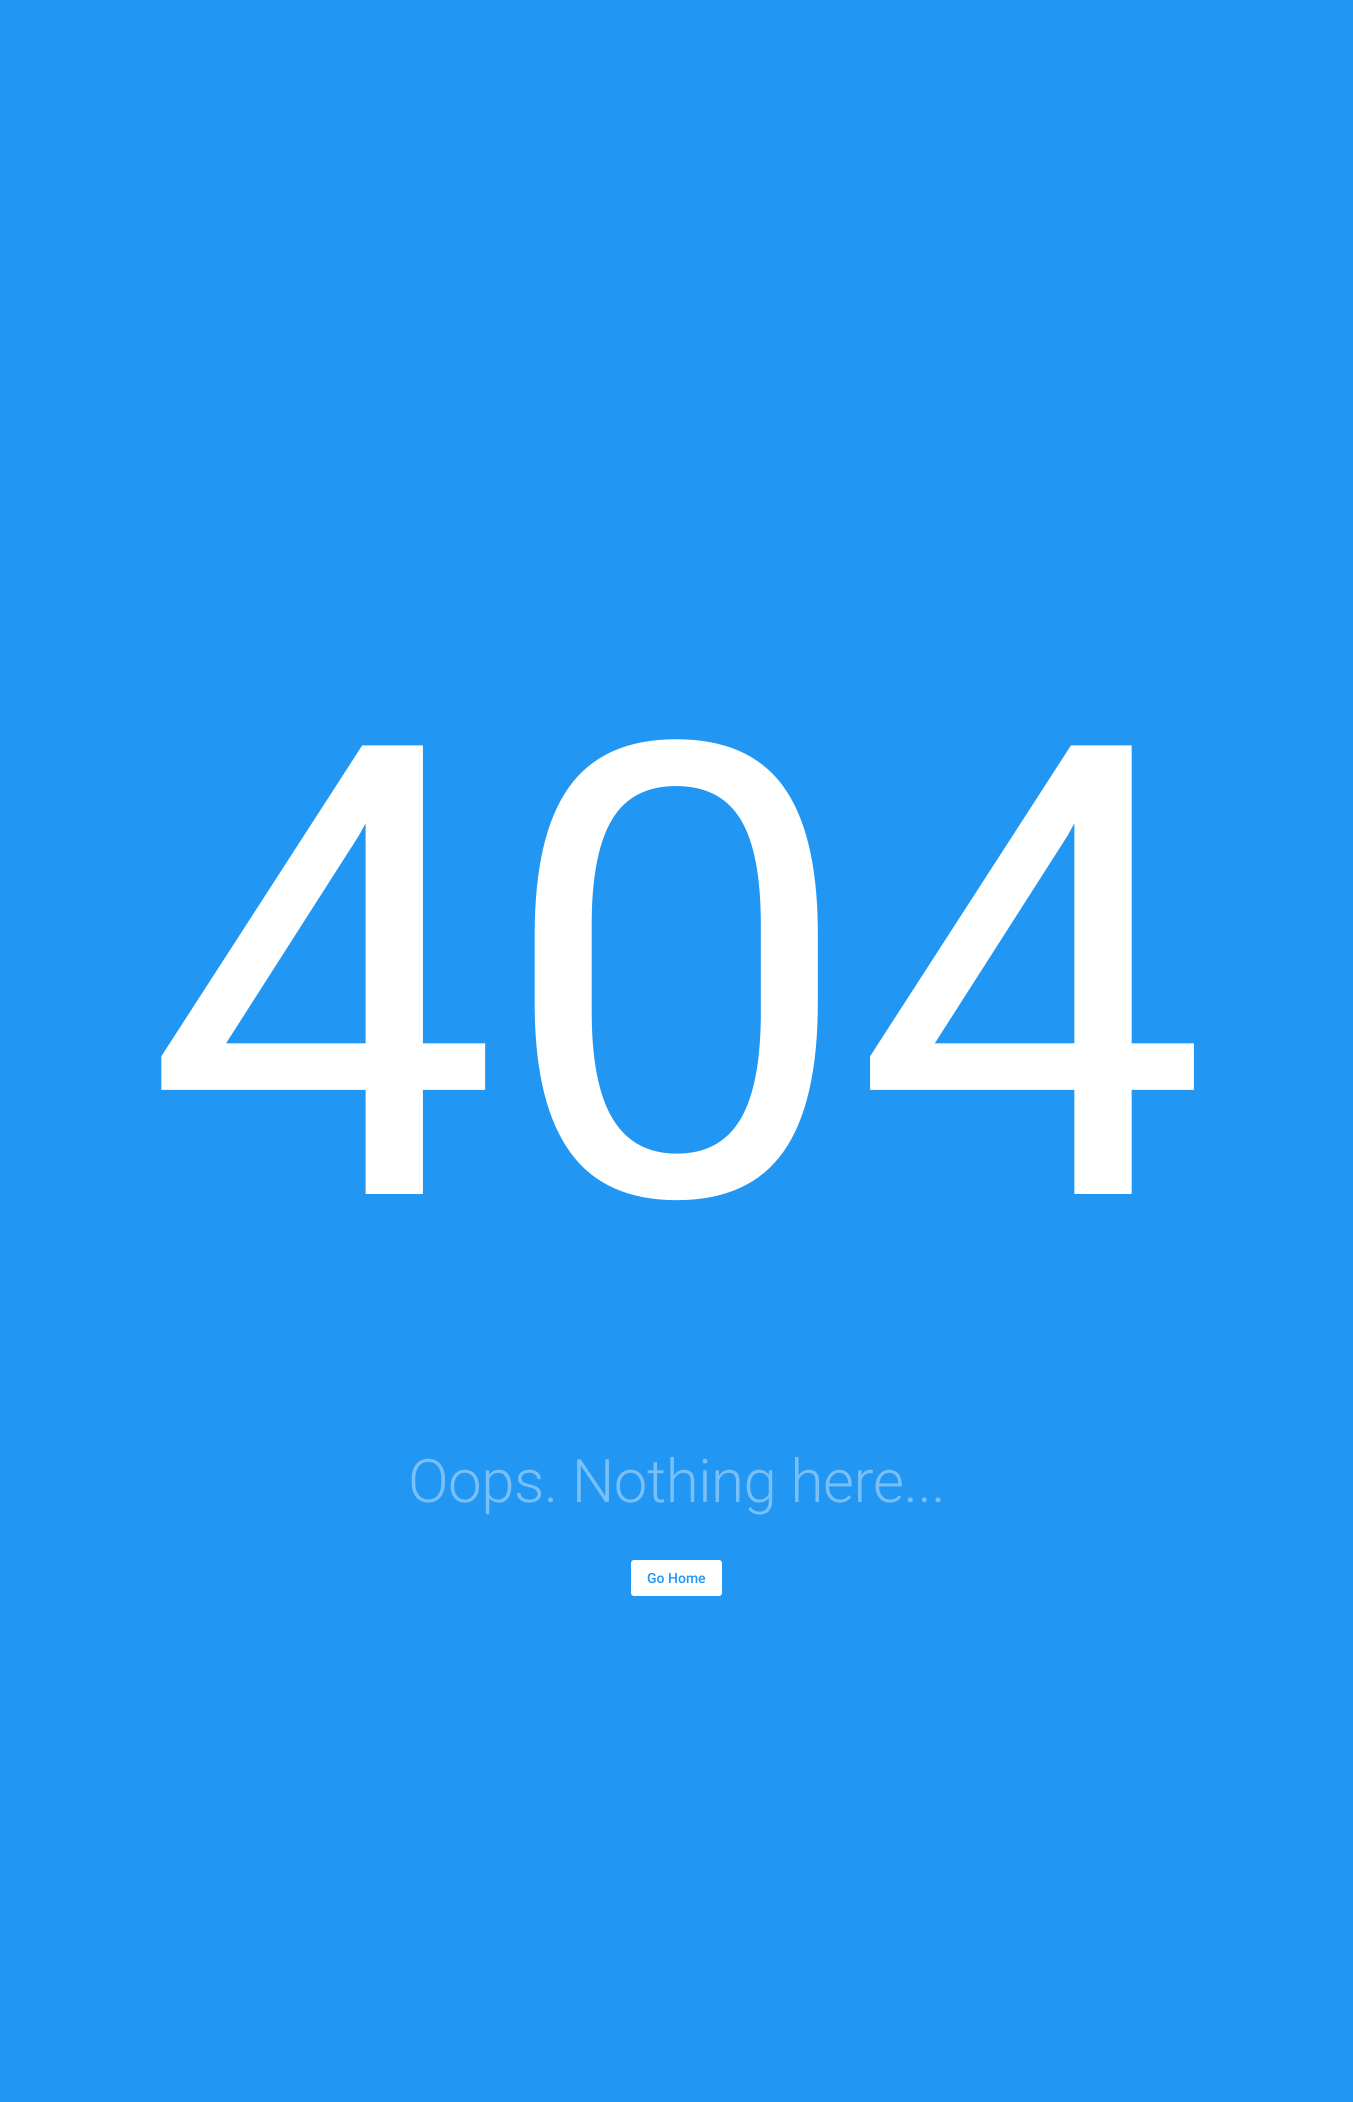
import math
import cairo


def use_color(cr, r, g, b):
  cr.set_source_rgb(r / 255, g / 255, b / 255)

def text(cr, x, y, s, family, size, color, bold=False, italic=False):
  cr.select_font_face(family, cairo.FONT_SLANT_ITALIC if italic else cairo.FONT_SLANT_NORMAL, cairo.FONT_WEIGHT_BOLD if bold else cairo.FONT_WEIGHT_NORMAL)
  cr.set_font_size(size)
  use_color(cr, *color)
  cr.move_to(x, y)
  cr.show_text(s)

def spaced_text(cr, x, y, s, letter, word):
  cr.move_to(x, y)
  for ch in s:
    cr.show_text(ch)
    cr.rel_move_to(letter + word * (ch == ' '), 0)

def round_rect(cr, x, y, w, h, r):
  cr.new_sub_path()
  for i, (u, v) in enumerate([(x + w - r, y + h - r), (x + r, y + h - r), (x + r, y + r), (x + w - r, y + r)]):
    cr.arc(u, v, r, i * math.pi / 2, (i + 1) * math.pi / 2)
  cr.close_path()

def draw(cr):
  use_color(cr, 33, 150, 243)
  cr.paint()
  use_color(cr, 255, 255, 255)
  round_rect(cr, 631, 1560, 91, 36, 3)
  cr.fill()
  text(cr, 145, 1194, "404", "Roboto", 631, (255, 255, 255))
  cr.select_font_face("Roboto Light")
  cr.set_font_size(60)
  use_color(cr, 122, 192, 248)
  spaced_text(cr, 408, 1502, "Oops. Nothing here...", -0.5, 0)
  text(cr, 647, 1583, "Go Home", "Roboto Medium", 14, (33, 150, 243))


surface = cairo.ImageSurface(cairo.FORMAT_RGB24, 1353, 2102)
cr = cairo.Context(surface)
options = cairo.FontOptions()
options.set_hint_metrics(cairo.HINT_METRICS_OFF)
options.set_hint_style(cairo.HINT_STYLE_NONE)
cr.set_font_options(options)
cr.set_miter_limit(4)
draw(cr)
surface.write_to_png("out.png")
